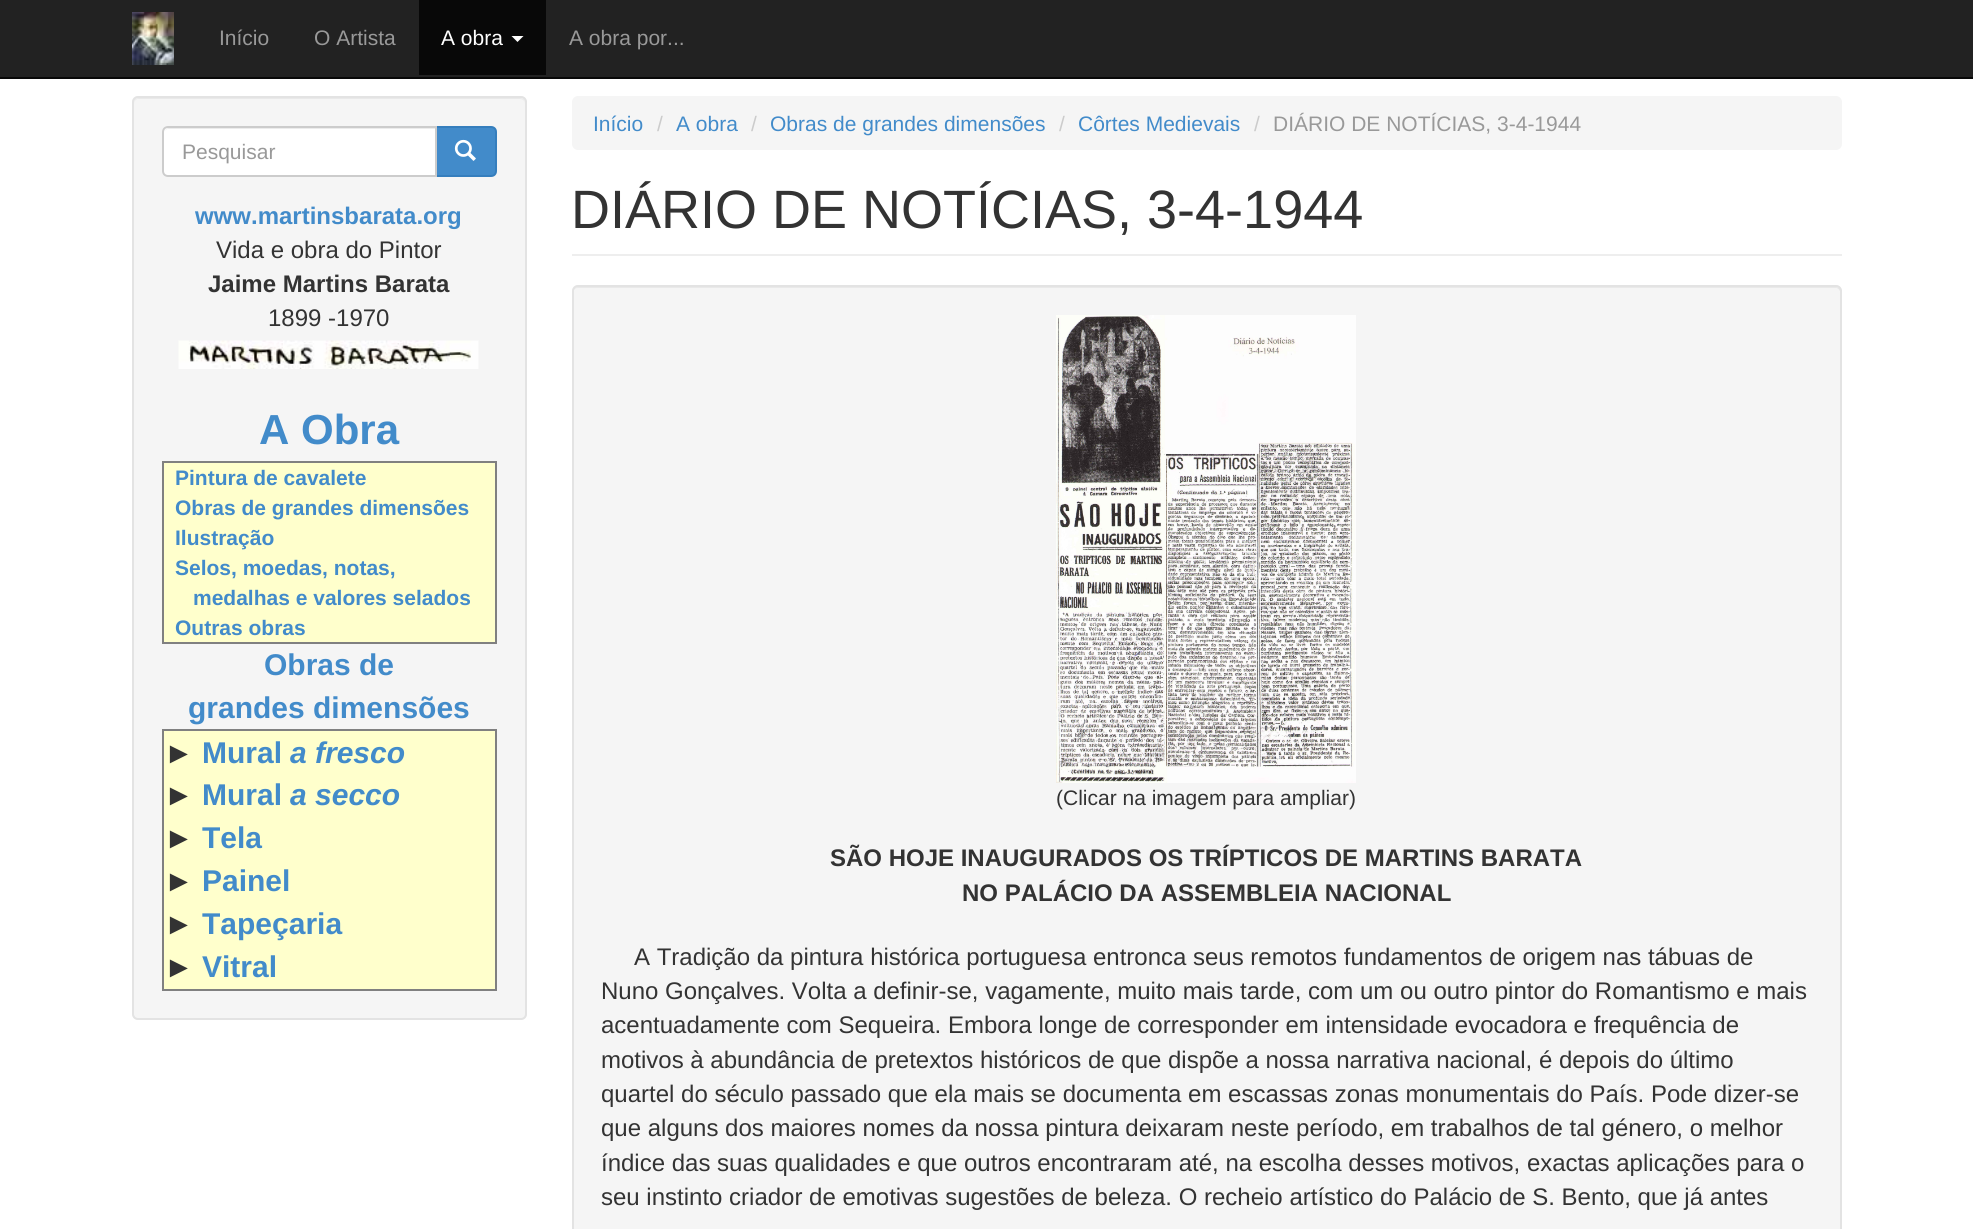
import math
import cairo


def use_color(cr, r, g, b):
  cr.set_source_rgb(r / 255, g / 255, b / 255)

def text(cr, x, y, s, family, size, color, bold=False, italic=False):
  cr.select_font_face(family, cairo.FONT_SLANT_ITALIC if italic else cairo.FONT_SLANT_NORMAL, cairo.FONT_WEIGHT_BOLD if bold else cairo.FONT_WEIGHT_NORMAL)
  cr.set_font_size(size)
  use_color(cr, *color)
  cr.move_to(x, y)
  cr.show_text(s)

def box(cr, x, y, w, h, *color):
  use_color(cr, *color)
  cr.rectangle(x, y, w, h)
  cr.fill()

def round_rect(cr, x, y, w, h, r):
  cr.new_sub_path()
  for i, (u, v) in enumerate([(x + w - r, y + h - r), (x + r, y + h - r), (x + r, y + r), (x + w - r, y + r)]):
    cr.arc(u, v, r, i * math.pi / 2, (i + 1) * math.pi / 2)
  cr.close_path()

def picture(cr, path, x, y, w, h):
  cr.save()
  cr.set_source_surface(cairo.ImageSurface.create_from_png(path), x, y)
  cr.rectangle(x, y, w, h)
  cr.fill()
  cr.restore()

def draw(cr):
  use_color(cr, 255, 255, 255)
  cr.paint()
  box(cr, 0, 0, 1973, 77, 34, 34, 34)
  box(cr, 0, 77, 1973, 2, 8, 8, 8)
  picture(cr, "img_01.png", 132, 12, 42, 53)
  box(cr, 419, 0, 127, 75, 8, 8, 8)
  use_color(cr, 255, 255, 255)
  cr.new_path()
  cr.move_to(511.5, 36)
  cr.line_to(523.5, 36)
  cr.line_to(517.5, 42)
  cr.close_path()
  cr.fill()
  use_color(cr, 245, 245, 245)
  round_rect(cr, 132, 96, 395, 924, 6)
  cr.fill()
  use_color(cr, 233, 233, 233)
  cr.new_path()
  cr.move_to(138, 99)
  cr.line_to(520, 99)
  cr.curve_to(523, 99, 525, 101, 525, 104)
  cr.line_to(525, 103)
  cr.curve_to(525, 100, 523, 98, 520, 98)
  cr.line_to(139, 98)
  cr.curve_to(136, 98, 134, 100, 134, 103)
  cr.line_to(134, 104)
  cr.curve_to(134, 101, 136, 99, 138, 99)
  cr.close_path()
  cr.fill()
  round_rect(cr, 133, 97, 393, 922, 5)
  use_color(cr, 227, 227, 227)
  cr.stroke()
  use_color(cr, 66, 139, 202)
  cr.new_path()
  cr.move_to(436, 127)
  cr.line_to(491, 127)
  cr.curve_to(494, 127, 496, 129, 496, 132)
  cr.line_to(496, 171)
  cr.curve_to(496, 174, 494, 176, 491, 176)
  cr.line_to(436, 176)
  cr.close_path()
  cr.fill_preserve()
  use_color(cr, 53, 126, 189)
  cr.stroke()
  use_color(cr, 255, 255, 255)
  cr.new_path()
  cr.move_to(168, 126)
  cr.line_to(437, 126)
  cr.line_to(437, 177)
  cr.line_to(168, 177)
  cr.curve_to(164.5, 177, 162, 174.5, 162, 171)
  cr.line_to(162, 132)
  cr.curve_to(162, 128.5, 164.5, 126, 168, 126)
  cr.close_path()
  cr.fill()
  use_color(cr, 236, 236, 236)
  cr.new_path()
  cr.move_to(168, 129)
  cr.line_to(435, 129)
  cr.line_to(435, 128)
  cr.line_to(169, 128)
  cr.curve_to(166, 128, 164, 131, 164, 134)
  cr.curve_to(164, 131, 166, 129, 168, 129)
  cr.close_path()
  cr.fill()
  cr.new_path()
  cr.move_to(168, 127)
  cr.line_to(436, 127)
  cr.line_to(436, 176)
  cr.line_to(168, 176)
  cr.curve_to(165, 176, 163, 174, 163, 171)
  cr.line_to(163, 132)
  cr.curve_to(163, 129, 165, 127, 168, 127)
  cr.close_path()
  use_color(cr, 204, 204, 204)
  cr.stroke()
  picture(cr, "img_02.png", 454, 139, 22, 22)
  picture(cr, "img_03.png", 178, 340, 301, 29)
  box(cr, 162, 461, 335, 2, 128, 128, 128)
  box(cr, 495, 461, 2, 183, 128, 128, 128)
  box(cr, 162, 642, 335, 2, 128, 128, 128)
  box(cr, 162, 461, 2, 183, 128, 128, 128)
  box(cr, 164, 463, 331, 179, 255, 255, 204)
  box(cr, 162, 729, 335, 2, 128, 128, 128)
  box(cr, 495, 729, 2, 261, 128, 128, 128)
  box(cr, 162, 989, 335, 2, 128, 128, 128)
  box(cr, 162, 729, 2, 261, 128, 128, 128)
  box(cr, 164, 731, 331, 258, 255, 255, 204)
  use_color(cr, 245, 245, 245)
  round_rect(cr, 572, 96, 1270, 54, 6)
  cr.fill()
  box(cr, 572, 254, 1270, 2, 238, 238, 238)
  use_color(cr, 245, 245, 245)
  round_rect(cr, 572, 285, 1270, 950, 6)
  cr.fill()
  use_color(cr, 233, 233, 233)
  cr.new_path()
  cr.move_to(578, 288)
  cr.line_to(1836, 288)
  cr.curve_to(1838, 288, 1840, 290, 1840, 292)
  cr.line_to(1840, 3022)
  cr.line_to(1839, 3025)
  cr.curve_to(1840, 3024, 1841, 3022, 1841, 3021)
  cr.line_to(1841, 292)
  cr.curve_to(1841, 289, 1839, 287, 1836, 287)
  cr.line_to(578, 287)
  cr.curve_to(575, 287, 573, 289, 573, 292)
  cr.curve_to(573, 290, 575, 288, 578, 288)
  cr.close_path()
  cr.fill()
  round_rect(cr, 573, 286, 1268, 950, 5)
  use_color(cr, 227, 227, 227)
  cr.stroke()
  picture(cr, "img_04.png", 1056, 315, 300, 468)
  text(cr, 219, 45, "Início", "Liberation Sans", 21, (153, 153, 153))
  text(cr, 314, 45, "O Artista", "Liberation Sans", 21, (153, 153, 153))
  text(cr, 441, 45, "A obra", "Liberation Sans", 21, (255, 255, 255))
  text(cr, 569, 45, "A obra por...", "Liberation Sans", 21, (153, 153, 153))
  text(cr, 182, 159, "Pesquisar", "Liberation Sans", 21, (153, 153, 153))
  text(cr, 195, 224, "www.martinsbarata.org", "Liberation Sans", 24, (66, 139, 202), bold=True)
  text(cr, 216, 258, "Vida e obra do Pintor", "Liberation Sans", 24, (51, 51, 51))
  text(cr, 208, 292, "Jaime Martins Barata", "Liberation Sans", 24, (51, 51, 51), bold=True)
  text(cr, 268, 326, "1899 -1970", "Liberation Sans", 24, (51, 51, 51))
  text(cr, 259, 444, "A Obra", "Liberation Sans", 42, (66, 139, 202), bold=True)
  text(cr, 175, 485, "Pintura de cavalete", "Liberation Sans", 21, (66, 139, 202), bold=True)
  text(cr, 175, 515, "Obras de grandes dimensões", "Liberation Sans", 21, (66, 139, 202), bold=True)
  text(cr, 175, 545, "Ilustração", "Liberation Sans", 21, (66, 139, 202), bold=True)
  text(cr, 175, 575, "Selos, moedas, notas,", "Liberation Sans", 21, (66, 139, 202), bold=True)
  text(cr, 193, 605, "medalhas e valores selados", "Liberation Sans", 21, (66, 139, 202), bold=True)
  text(cr, 175, 635, "Outras obras", "Liberation Sans", 21, (66, 139, 202), bold=True)
  text(cr, 264, 675, "Obras de", "Liberation Sans", 30, (66, 139, 202), bold=True)
  text(cr, 188, 718, "grandes dimensões", "Liberation Sans", 30, (66, 139, 202), bold=True)
  text(cr, 164, 763, "►", "Liberation Sans", 30, (51, 51, 51), bold=True)
  text(cr, 202, 763, "Mural", "Liberation Sans", 30, (66, 139, 202), bold=True)
  text(cr, 290, 763, "a fresco", "Liberation Sans", 30, (66, 139, 202), bold=True, italic=True)
  text(cr, 164, 805, "►", "Liberation Sans", 30, (51, 51, 51), bold=True)
  text(cr, 202, 805, "Mural", "Liberation Sans", 30, (66, 139, 202), bold=True)
  text(cr, 290, 805, "a secco", "Liberation Sans", 30, (66, 139, 202), bold=True, italic=True)
  text(cr, 164, 848, "►", "Liberation Sans", 30, (51, 51, 51), bold=True)
  text(cr, 202, 848, "Tela", "Liberation Sans", 30, (66, 139, 202), bold=True)
  text(cr, 164, 891, "►", "Liberation Sans", 30, (51, 51, 51), bold=True)
  text(cr, 202, 891, "Painel", "Liberation Sans", 30, (66, 139, 202), bold=True)
  text(cr, 164, 934, "►", "Liberation Sans", 30, (51, 51, 51), bold=True)
  text(cr, 202, 934, "Tapeçaria", "Liberation Sans", 30, (66, 139, 202), bold=True)
  text(cr, 164, 977, "►", "Liberation Sans", 30, (51, 51, 51), bold=True)
  text(cr, 202, 977, "Vitral", "Liberation Sans", 30, (66, 139, 202), bold=True)
  text(cr, 593, 131, "Início", "Liberation Sans", 21, (66, 139, 202))
  text(cr, 657, 131, "/", "Liberation Sans", 21, (204, 204, 204))
  text(cr, 676, 131, "A obra", "Liberation Sans", 21, (66, 139, 202))
  text(cr, 751, 131, "/", "Liberation Sans", 21, (204, 204, 204))
  text(cr, 770, 131, "Obras de grandes dimensões", "Liberation Sans", 21, (66, 139, 202))
  text(cr, 1059, 131, "/", "Liberation Sans", 21, (204, 204, 204))
  text(cr, 1078, 131, "Côrtes Medievais", "Liberation Sans", 21, (66, 139, 202))
  text(cr, 1254, 131, "/", "Liberation Sans", 21, (204, 204, 204))
  text(cr, 1273, 131, "DIÁRIO DE NOTÍCIAS, 3-4-1944", "Liberation Sans", 21, (153, 153, 153))
  text(cr, 571, 228, "DIÁRIO DE NOTÍCIAS, 3-4-1944", "Liberation Sans", 54, (51, 51, 51))
  text(cr, 1056, 805, "(Clicar na imagem para ampliar)", "Liberation Sans", 21, (51, 51, 51))
  text(cr, 830, 866, "SÃO HOJE INAUGURADOS OS TRÍPTICOS DE MARTINS BARATA", "Liberation Sans", 24, (51, 51, 51), bold=True)
  text(cr, 962, 901, "NO PALÁCIO DA ASSEMBLEIA NACIONAL", "Liberation Sans", 24, (51, 51, 51), bold=True)
  text(cr, 634, 965, "A Tradição da pintura histórica portuguesa entronca seus remotos fundamentos de origem nas tábuas de", "Liberation Sans", 24, (51, 51, 51))
  text(cr, 601, 999, "Nuno Gonçalves. Volta a definir-se, vagamente, muito mais tarde, com um ou outro pintor do Romantismo e mais", "Liberation Sans", 24, (51, 51, 51))
  text(cr, 601, 1033, "acentuadamente com Sequeira. Embora longe de corresponder em intensidade evocadora e frequência de", "Liberation Sans", 24, (51, 51, 51))
  text(cr, 601, 1068, "motivos à abundância de pretextos históricos de que dispõe a nossa narrativa nacional, é depois do último", "Liberation Sans", 24, (51, 51, 51))
  text(cr, 601, 1102, "quartel do século passado que ela mais se documenta em escassas zonas monumentais do País. Pode dizer-se", "Liberation Sans", 24, (51, 51, 51))
  text(cr, 601, 1136, "que alguns dos maiores nomes da nossa pintura deixaram neste período, em trabalhos de tal género, o melhor", "Liberation Sans", 24, (51, 51, 51))
  text(cr, 601, 1171, "índice das suas qualidades e que outros encontraram até, na escolha desses motivos, exactas aplicações para o", "Liberation Sans", 24, (51, 51, 51))
  text(cr, 601, 1205, "seu instinto criador de emotivas sugestões de beleza. O recheio artístico do Palácio de S. Bento, que já antes", "Liberation Sans", 24, (51, 51, 51))


surface = cairo.ImageSurface(cairo.FORMAT_RGB24, 1973, 1229)
cr = cairo.Context(surface)
options = cairo.FontOptions()
options.set_hint_metrics(cairo.HINT_METRICS_OFF)
options.set_hint_style(cairo.HINT_STYLE_NONE)
cr.set_font_options(options)
cr.set_miter_limit(4)
draw(cr)
surface.write_to_png("out.png")
